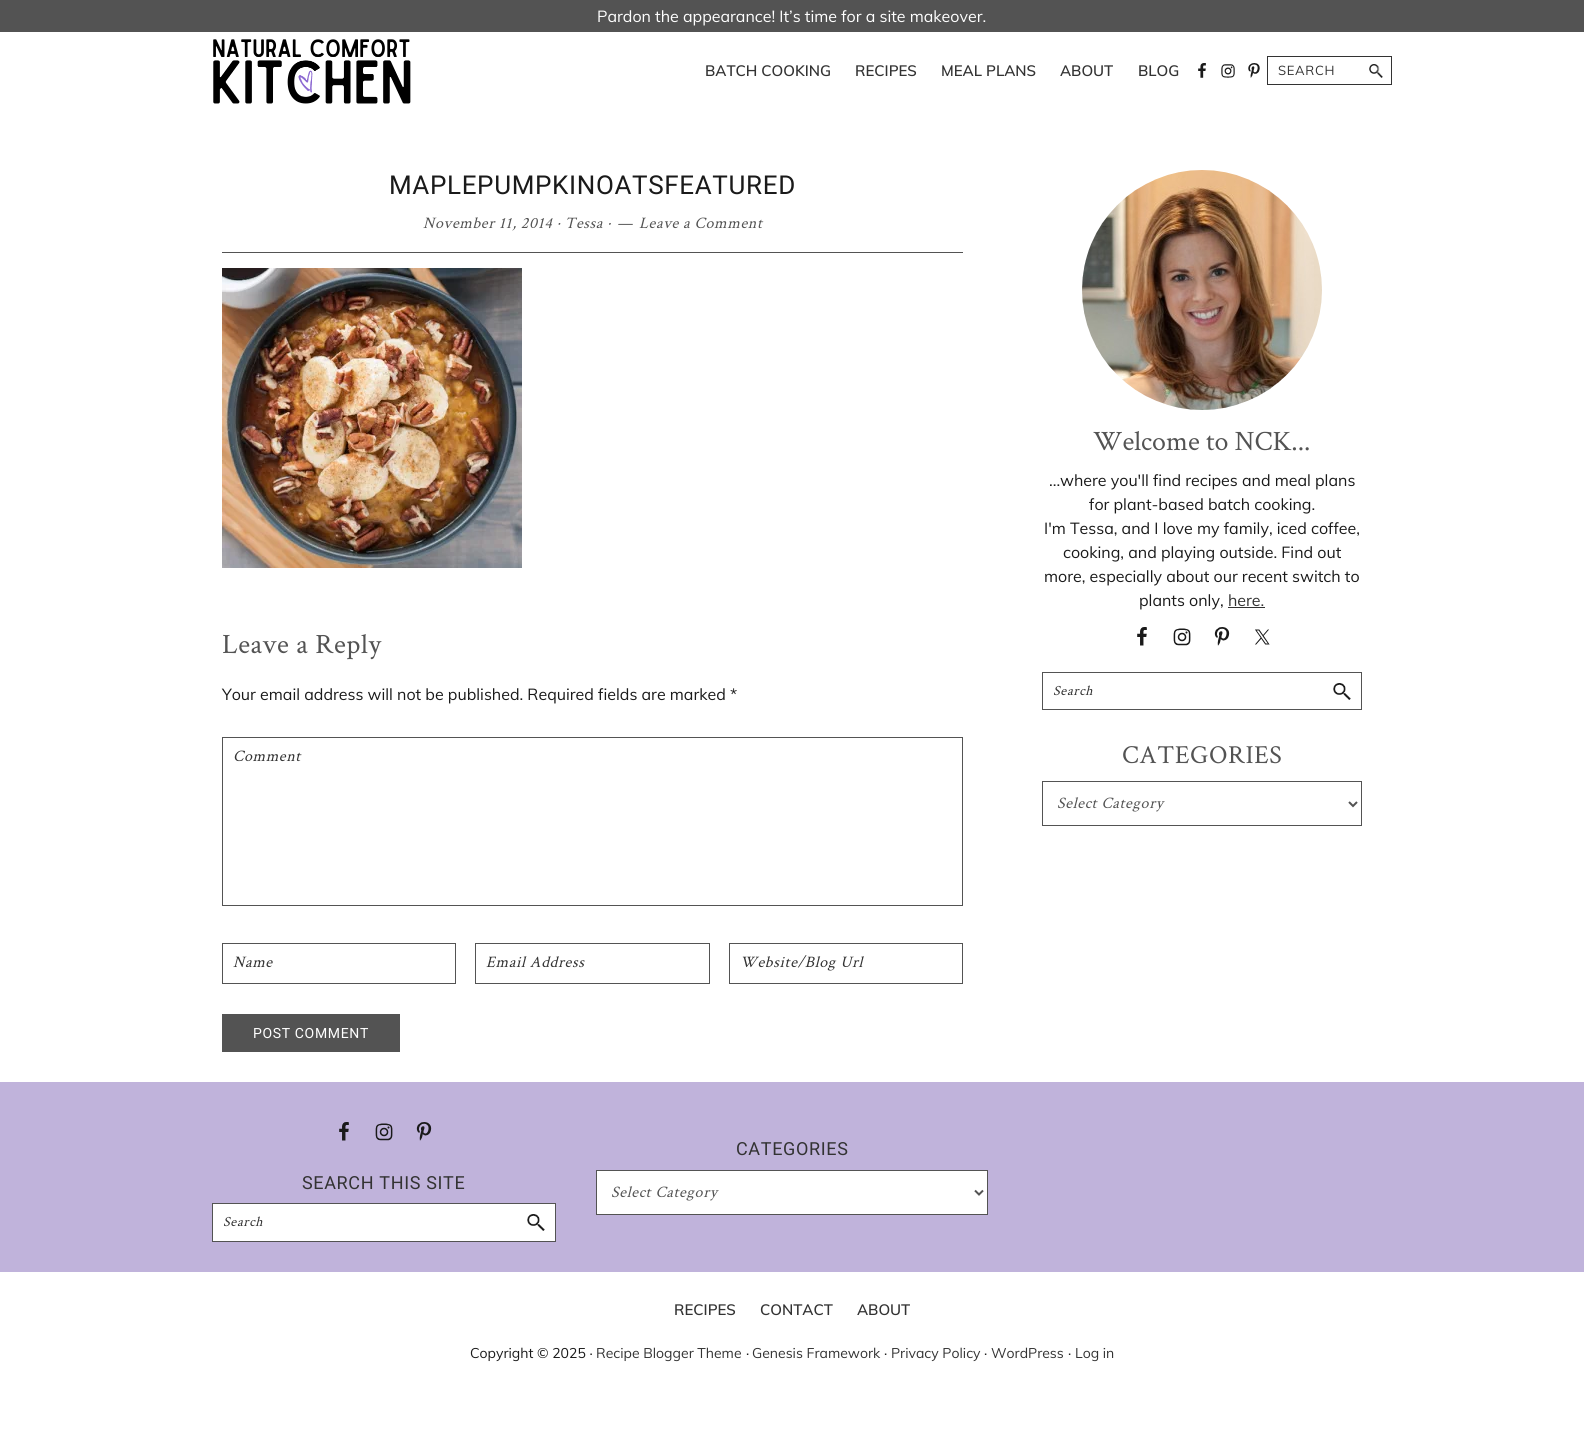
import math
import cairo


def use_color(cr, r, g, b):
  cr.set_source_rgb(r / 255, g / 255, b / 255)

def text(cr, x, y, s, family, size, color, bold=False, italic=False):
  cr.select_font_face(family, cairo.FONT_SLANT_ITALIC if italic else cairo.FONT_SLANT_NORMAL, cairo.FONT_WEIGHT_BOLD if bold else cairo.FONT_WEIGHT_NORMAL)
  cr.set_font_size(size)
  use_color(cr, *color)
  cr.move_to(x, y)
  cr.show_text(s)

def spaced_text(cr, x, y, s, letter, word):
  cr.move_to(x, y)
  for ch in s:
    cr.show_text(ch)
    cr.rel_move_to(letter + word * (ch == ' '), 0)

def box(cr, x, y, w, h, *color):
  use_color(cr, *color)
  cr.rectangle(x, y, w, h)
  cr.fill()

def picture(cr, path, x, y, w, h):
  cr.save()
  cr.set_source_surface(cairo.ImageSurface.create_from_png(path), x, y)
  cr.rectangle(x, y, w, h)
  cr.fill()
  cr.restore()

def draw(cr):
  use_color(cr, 255, 255, 255)
  cr.paint()
  box(cr, 0, 0, 1584, 32, 83, 83, 83)
  picture(cr, "img_01.png", 213, 39, 198, 65)
  picture(cr, "img_02.png", 1198, 63, 8, 15)
  picture(cr, "img_03.png", 1221, 64, 14, 14)
  picture(cr, "img_04.png", 1248, 63, 12, 15)
  picture(cr, "img_05.png", 1369, 64, 14, 14)
  cr.rectangle(1267.5, 56.5, 124, 28)
  use_color(cr, 51, 51, 51)
  cr.set_line_width(1)
  cr.stroke()
  box(cr, 222, 252, 741, 1, 83, 83, 83)
  picture(cr, "img_06.png", 222, 268, 300, 300)
  cr.rectangle(222.5, 737.5, 740, 168)
  cr.stroke()
  cr.rectangle(222.5, 943.5, 233, 40)
  cr.stroke()
  cr.rectangle(475.5, 943.5, 234, 40)
  cr.stroke()
  cr.rectangle(729.5, 943.5, 233, 40)
  cr.stroke()
  box(cr, 222, 1014, 178, 38, 83, 83, 83)
  picture(cr, "img_07.png", 1082, 170, 240, 240)
  box(cr, 1228, 607, 37, 1, 51, 51, 51)
  picture(cr, "img_08.png", 1137, 627, 10, 19)
  picture(cr, "img_09.png", 1173, 628, 18, 18)
  picture(cr, "img_10.png", 1214, 627, 16, 19)
  picture(cr, "img_11.png", 1255, 629, 15, 16)
  picture(cr, "img_12.png", 1333, 683, 18, 17)
  cr.rectangle(1042.5, 672.5, 319, 37)
  use_color(cr, 83, 83, 83)
  cr.stroke()
  cr.rectangle(1042.5, 781.5, 319, 44)
  cr.stroke()
  cr.new_path()
  cr.move_to(1349, 802)
  cr.line_to(1353, 806)
  cr.line_to(1357, 802)
  cr.set_line_width(2)
  cr.stroke()
  box(cr, 0, 1082, 1584, 190, 192, 179, 219)
  picture(cr, "img_13.png", 339, 1122, 10, 19)
  picture(cr, "img_14.png", 375, 1123, 18, 18)
  picture(cr, "img_15.png", 416, 1122, 16, 19)
  box(cr, 213, 1204, 342, 37, 255, 255, 255)
  picture(cr, "img_12.png", 527, 1214, 18, 17)
  cr.rectangle(212.5, 1203.5, 343, 38)
  use_color(cr, 83, 83, 83)
  cr.set_line_width(1)
  cr.stroke()
  use_color(cr, 255, 255, 255)
  cr.rectangle(596.5, 1170.5, 391, 44)
  cr.fill_preserve()
  use_color(cr, 83, 83, 83)
  cr.stroke()
  cr.new_path()
  cr.move_to(975, 1190.5)
  cr.line_to(979, 1194.5)
  cr.line_to(983, 1190.5)
  cr.set_line_width(2)
  cr.stroke()
  text(cr, 597, 22, "Pardon the appearance! It’s time for a site makeover.", "Muli", 16, (255, 255, 255))
  text(cr, 705, 76, "BATCH COOKING", "Muli SemiBold", 15, (51, 51, 51))
  text(cr, 855, 76, "RECIPES", "Muli SemiBold", 15, (51, 51, 51))
  text(cr, 941, 76, "MEAL PLANS", "Muli SemiBold", 15, (51, 51, 51))
  text(cr, 1060, 76, "ABOUT", "Muli SemiBold", 15, (51, 51, 51))
  text(cr, 1138, 76, "BLOG", "Muli SemiBold", 15, (51, 51, 51))
  cr.select_font_face("Muli")
  cr.set_font_size(13)
  spaced_text(cr, 1278, 75, "SEARCH", 0.65, 0)
  cr.select_font_face("Roboto")
  cr.set_font_size(26)
  use_color(cr, 26, 26, 26)
  spaced_text(cr, 389, 194, "MAPLEPUMPKINOATSFEATURED", 0.65, 0)
  cr.select_font_face("Crimson Text", cairo.FONT_SLANT_ITALIC)
  cr.set_font_size(16)
  use_color(cr, 83, 83, 83)
  spaced_text(cr, 423, 228, "November 11, 2014 · Tessa ·", 0.65, 0)
  spaced_text(cr, 617, 228, "—", 0.65, 0)
  spaced_text(cr, 639, 228, "Leave a Comment", 0.65, 0)
  cr.select_font_face("Crimson Text")
  cr.set_font_size(28)
  spaced_text(cr, 222, 653, "Leave a Reply", 0.65, 0)
  text(cr, 222, 700, "Your email address will not be published. Required fields are marked *", "Muli", 16, (26, 26, 26))
  cr.select_font_face("Crimson Text", cairo.FONT_SLANT_ITALIC)
  use_color(cr, 51, 51, 51)
  spaced_text(cr, 233, 761, "Comment", 0.65, 0)
  spaced_text(cr, 233, 967, "Name", 0.65, 0)
  spaced_text(cr, 486, 967, "Email Address", 0.65, 0)
  spaced_text(cr, 740, 967, "Website/Blog Url", 0.65, 0)
  cr.select_font_face("Roboto")
  cr.set_font_size(14)
  use_color(cr, 255, 255, 255)
  spaced_text(cr, 253, 1038, "POST COMMENT", 0.65, 0)
  text(cr, 1093, 450, "Welcome to NCK...", "Crimson Text", 28, (83, 83, 83))
  text(cr, 1049, 486, "...where you'll find recipes and meal plans", "Muli", 16, (26, 26, 26))
  text(cr, 1089, 510, "for plant-based batch cooking.", "Muli", 16, (26, 26, 26))
  text(cr, 1044, 534, "I'm Tessa, and I love my family, iced coffee,", "Muli", 16, (26, 26, 26))
  text(cr, 1063, 558, "cooking, and playing outside. Find out", "Muli", 16, (26, 26, 26))
  text(cr, 1044, 582, "more, especially about our recent switch to", "Muli", 16, (26, 26, 26))
  text(cr, 1139, 606, "plants only,", "Muli", 16, (26, 26, 26))
  text(cr, 1228, 606, "here.", "Muli", 16, (51, 51, 51))
  cr.select_font_face("Crimson Text", cairo.FONT_SLANT_ITALIC)
  cr.set_font_size(14)
  spaced_text(cr, 1053, 695, "Search", 0.65, 0)
  cr.select_font_face("Crimson Text")
  cr.set_font_size(26)
  use_color(cr, 83, 83, 83)
  spaced_text(cr, 1122, 763, "CATEGORIES", 0.65, 0)
  cr.select_font_face("Crimson Text", cairo.FONT_SLANT_ITALIC)
  cr.set_font_size(16)
  spaced_text(cr, 1057, 808, "Select Category", 0.65, 0)
  cr.select_font_face("Roboto")
  cr.set_font_size(18)
  use_color(cr, 51, 51, 51)
  spaced_text(cr, 302, 1189, "SEARCH THIS SITE", 0.65, 0)
  cr.select_font_face("Crimson Text", cairo.FONT_SLANT_ITALIC)
  cr.set_font_size(14)
  spaced_text(cr, 223, 1226, "Search", 0.65, 0)
  cr.select_font_face("Roboto")
  cr.set_font_size(18)
  spaced_text(cr, 736, 1155, "CATEGORIES", 0.65, 0)
  cr.select_font_face("Crimson Text", cairo.FONT_SLANT_ITALIC)
  cr.set_font_size(16)
  use_color(cr, 83, 83, 83)
  spaced_text(cr, 611, 1197, "Select Category", 0.65, 0)
  text(cr, 674, 1315, "RECIPES", "Muli SemiBold", 15, (51, 51, 51))
  text(cr, 760, 1315, "CONTACT", "Muli SemiBold", 15, (51, 51, 51))
  text(cr, 857, 1315, "ABOUT", "Muli SemiBold", 15, (51, 51, 51))
  text(cr, 470, 1358, "Copyright © 2025 ·", "Muli", 14, (26, 26, 26))
  text(cr, 596, 1358, "Recipe Blogger Theme", "Muli", 14, (51, 51, 51))
  text(cr, 746, 1358, "·", "Muli", 14, (26, 26, 26))
  text(cr, 752, 1358, "Genesis Framework", "Muli", 14, (51, 51, 51))
  text(cr, 884, 1358, "·", "Muli", 14, (26, 26, 26))
  text(cr, 891, 1358, "Privacy Policy", "Muli", 14, (51, 51, 51))
  text(cr, 984, 1358, "·", "Muli", 14, (26, 26, 26))
  text(cr, 991, 1358, "WordPress", "Muli", 14, (51, 51, 51))
  text(cr, 1068, 1358, "·", "Muli", 14, (26, 26, 26))
  text(cr, 1075, 1358, "Log in", "Muli", 14, (51, 51, 51))


surface = cairo.ImageSurface(cairo.FORMAT_RGB24, 1584, 1450)
cr = cairo.Context(surface)
options = cairo.FontOptions()
options.set_hint_metrics(cairo.HINT_METRICS_OFF)
options.set_hint_style(cairo.HINT_STYLE_NONE)
cr.set_font_options(options)
cr.set_miter_limit(4)
draw(cr)
surface.write_to_png("out.png")
